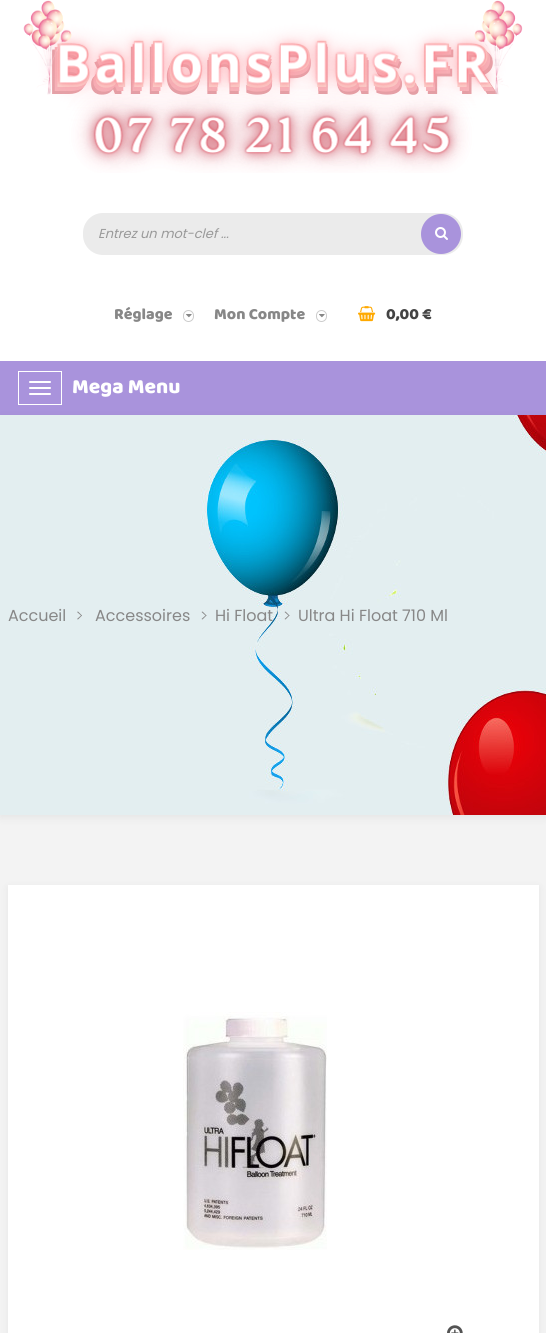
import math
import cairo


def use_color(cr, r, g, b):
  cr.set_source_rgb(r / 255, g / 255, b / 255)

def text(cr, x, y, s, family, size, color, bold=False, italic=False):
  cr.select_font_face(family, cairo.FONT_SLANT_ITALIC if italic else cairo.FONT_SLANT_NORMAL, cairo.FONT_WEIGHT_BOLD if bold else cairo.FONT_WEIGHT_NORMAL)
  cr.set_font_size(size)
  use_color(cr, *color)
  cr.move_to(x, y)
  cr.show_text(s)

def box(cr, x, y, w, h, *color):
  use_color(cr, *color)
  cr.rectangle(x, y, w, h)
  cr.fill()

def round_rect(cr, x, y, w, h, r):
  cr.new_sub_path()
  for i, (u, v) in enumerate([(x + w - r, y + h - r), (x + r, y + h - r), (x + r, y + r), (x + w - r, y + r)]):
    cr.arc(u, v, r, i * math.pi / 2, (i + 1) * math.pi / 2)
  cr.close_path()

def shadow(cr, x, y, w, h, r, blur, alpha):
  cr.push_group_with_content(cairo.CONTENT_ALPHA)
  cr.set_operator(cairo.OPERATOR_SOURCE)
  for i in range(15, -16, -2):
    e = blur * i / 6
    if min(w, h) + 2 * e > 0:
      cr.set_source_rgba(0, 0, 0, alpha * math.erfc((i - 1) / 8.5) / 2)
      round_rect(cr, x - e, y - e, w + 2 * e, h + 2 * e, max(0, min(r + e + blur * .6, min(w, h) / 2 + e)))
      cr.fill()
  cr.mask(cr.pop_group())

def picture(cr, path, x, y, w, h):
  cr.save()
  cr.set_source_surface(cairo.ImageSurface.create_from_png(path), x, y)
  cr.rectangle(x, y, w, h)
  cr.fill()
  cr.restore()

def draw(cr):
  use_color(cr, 255, 255, 255)
  cr.paint()
  picture(cr, "img_01.png", 23, 0, 500, 173)
  use_color(cr, 235, 235, 235)
  round_rect(cr, 83, 213, 380, 42, 20)
  cr.fill()
  use_color(cr, 169, 147, 220)
  cr.arc(441, 234, 20, 0, 2 * math.pi)
  cr.fill()
  picture(cr, "img_02.png", 435, 227, 13, 13)
  round_rect(cr, 183.5, 310.5, 10, 11, 5)
  use_color(cr, 204, 204, 204)
  cr.set_line_width(1)
  cr.stroke()
  picture(cr, "img_03.png", 186, 314, 6, 4)
  round_rect(cr, 316.5, 310.5, 10, 11, 5)
  cr.stroke()
  picture(cr, "img_03.png", 319, 314, 6, 4)
  picture(cr, "img_04.png", 358, 306, 18, 16)
  box(cr, 0, 361, 546, 54, 169, 147, 220)
  cr.rectangle(18.5, 371.5, 43, 33)
  use_color(cr, 255, 255, 255)
  cr.stroke()
  round_rect(cr, 29, 381, 22, 2, 1)
  cr.fill()
  round_rect(cr, 29, 387, 22, 2, 1)
  cr.fill()
  round_rect(cr, 29, 393, 22, 2, 1)
  cr.fill()
  box(cr, 0, 815, 546, 518, 243, 243, 243)
  use_color(cr, 0, 0, 0)
  shadow(cr, 0, 418, 546, 400, 0, 4.5, 0.06)
  picture(cr, "img_05.png", 0, 415, 546, 400)
  use_color(cr, 135, 135, 135)
  cr.new_path()
  cr.move_to(78, 611.5)
  cr.line_to(82, 615.5)
  cr.line_to(81.5, 616)
  cr.line_to(77, 612)
  cr.close_path()
  cr.fill()
  cr.new_path()
  cr.move_to(81.5, 615)
  cr.line_to(82, 615.5)
  cr.line_to(78, 619.5)
  cr.line_to(77, 619)
  cr.close_path()
  cr.fill()
  cr.new_path()
  cr.move_to(202.5, 611.5)
  cr.line_to(206.5, 615.5)
  cr.line_to(206, 616)
  cr.line_to(201.5, 612)
  cr.close_path()
  cr.fill()
  cr.new_path()
  cr.move_to(206, 615)
  cr.line_to(206.5, 615.5)
  cr.line_to(202.5, 619.5)
  cr.line_to(201.5, 619)
  cr.close_path()
  cr.fill()
  cr.new_path()
  cr.move_to(285.5, 611.5)
  cr.line_to(289.5, 615.5)
  cr.line_to(289, 616)
  cr.line_to(284.5, 612)
  cr.close_path()
  cr.fill()
  cr.new_path()
  cr.move_to(289, 615)
  cr.line_to(289.5, 615.5)
  cr.line_to(285.5, 619.5)
  cr.line_to(284.5, 619)
  cr.close_path()
  cr.fill()
  use_color(cr, 0, 0, 0)
  shadow(cr, 8, 888, 531, 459, 0, 4.5, 0.06)
  box(cr, 8, 885, 531, 448, 255, 255, 255)
  picture(cr, "img_06.png", 183, 1012, 144, 238)
  picture(cr, "img_07.png", 447, 1325, 16, 8)
  text(cr, 98, 238, "Entrez un mot-clef ...", "Poppins", 13, (153, 153, 153), italic=True)
  text(cr, 114, 319, "Réglage", "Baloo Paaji", 16, (135, 135, 135))
  text(cr, 214, 319, "Mon Compte", "Baloo Paaji", 16, (135, 135, 135))
  text(cr, 386, 319, "0,00 €", "Baloo Paaji", 16, (67, 67, 67))
  text(cr, 72, 393, "Mega Menu", "Baloo Paaji", 21, (255, 255, 255))
  text(cr, 8, 621, "Accueil", "Poppins", 16, (135, 135, 135))
  text(cr, 95, 621, "Accessoires", "Poppins", 16, (135, 135, 135))
  text(cr, 215, 621, "Hi Float", "Poppins", 16, (135, 135, 135))
  text(cr, 298, 621, "Ultra Hi Float 710 Ml", "Poppins", 16, (135, 135, 135))


surface = cairo.ImageSurface(cairo.FORMAT_RGB24, 546, 1333)
cr = cairo.Context(surface)
options = cairo.FontOptions()
options.set_hint_metrics(cairo.HINT_METRICS_OFF)
options.set_hint_style(cairo.HINT_STYLE_NONE)
cr.set_font_options(options)
cr.set_miter_limit(4)
draw(cr)
surface.write_to_png("out.png")
